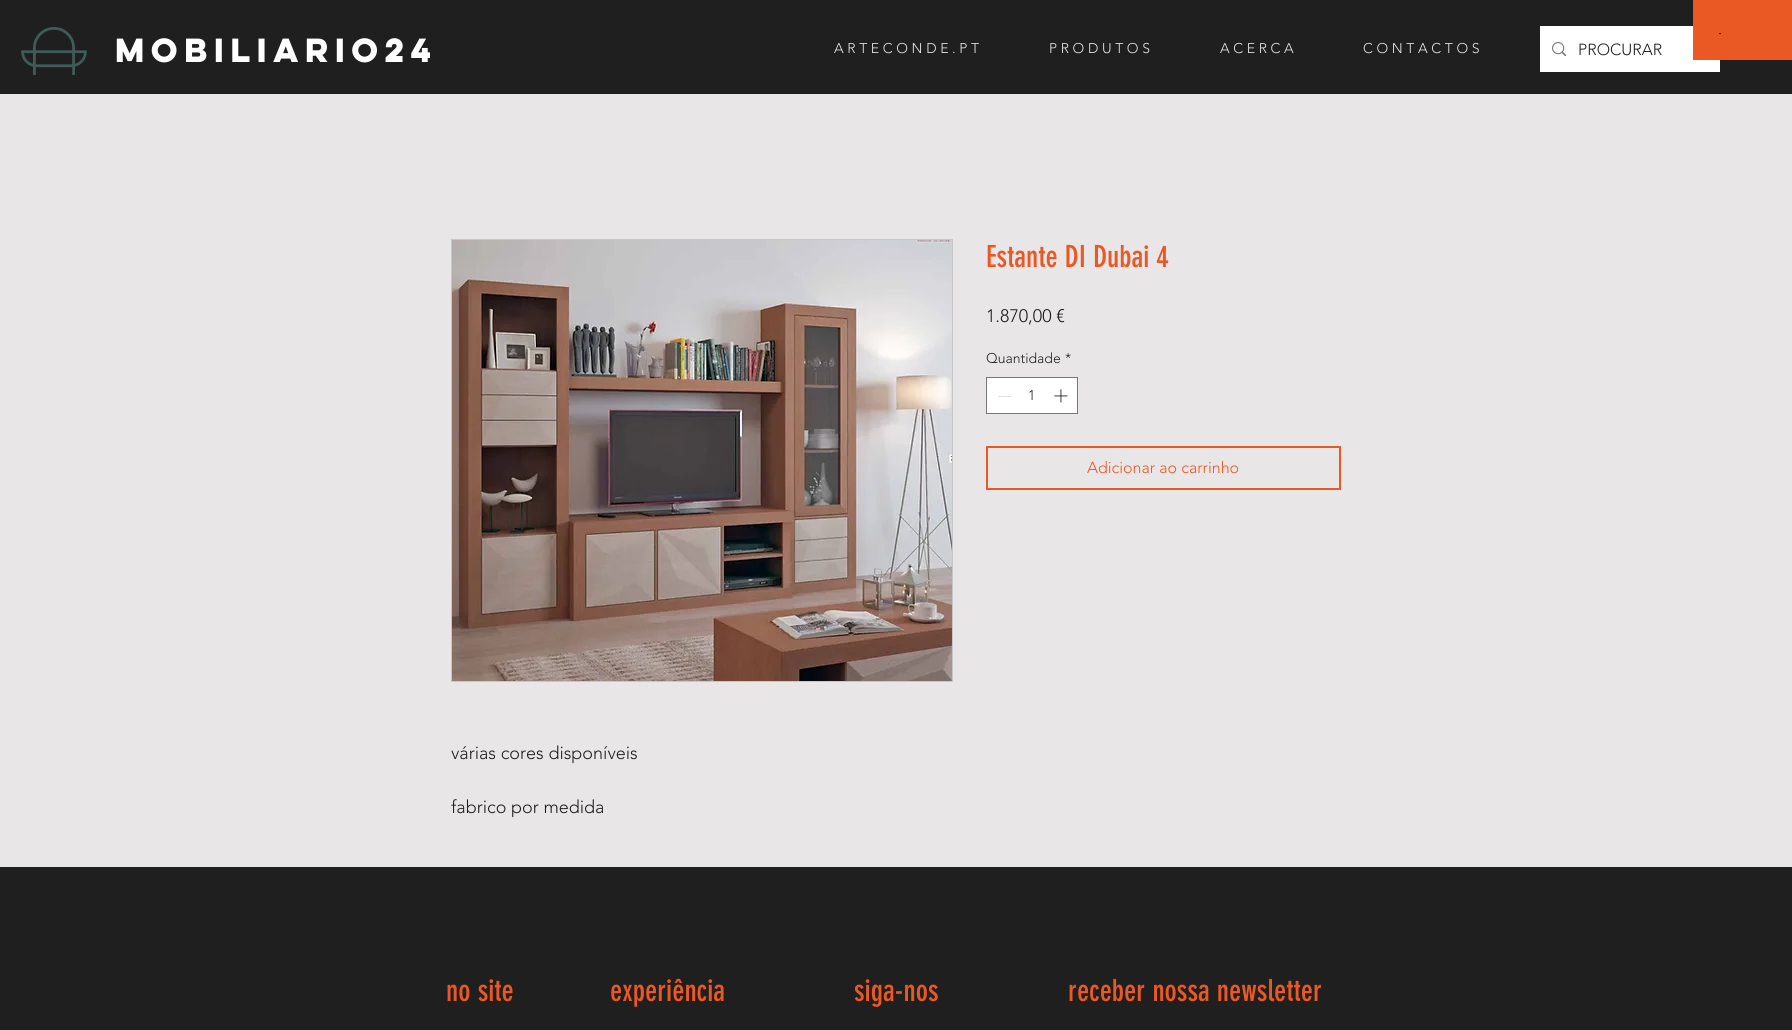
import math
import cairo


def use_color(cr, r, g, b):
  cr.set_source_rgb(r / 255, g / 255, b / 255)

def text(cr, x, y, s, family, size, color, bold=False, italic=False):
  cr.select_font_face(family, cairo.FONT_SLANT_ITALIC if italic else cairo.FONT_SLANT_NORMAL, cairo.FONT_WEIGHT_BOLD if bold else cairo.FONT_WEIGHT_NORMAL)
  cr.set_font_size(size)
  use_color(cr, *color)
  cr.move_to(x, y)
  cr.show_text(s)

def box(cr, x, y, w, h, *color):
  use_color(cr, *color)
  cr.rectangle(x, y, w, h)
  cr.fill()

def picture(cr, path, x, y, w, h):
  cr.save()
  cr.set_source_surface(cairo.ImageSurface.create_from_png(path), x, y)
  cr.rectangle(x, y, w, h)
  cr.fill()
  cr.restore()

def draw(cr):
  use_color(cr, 232, 230, 230)
  cr.paint()
  box(cr, 0, 0, 1792, 94, 31, 31, 31)
  picture(cr, "img_01.png", 21, 27, 66, 48)
  box(cr, 1540, 26, 180, 46, 255, 255, 255)
  picture(cr, "img_02.png", 1552, 42, 14, 14)
  box(cr, 1693, 0, 99, 60, 234, 88, 35)
  picture(cr, "img_03.png", 1719, 33, 2, 2)
  use_color(cr, 255, 255, 255)
  cr.rectangle(986.5, 377.5, 91, 36)
  cr.fill_preserve()
  use_color(cr, 121, 121, 121)
  cr.set_line_width(1)
  cr.stroke()
  box(cr, 998, 396, 13, 1, 227, 227, 227)
  picture(cr, "img_04.png", 1054, 389, 14, 14)
  cr.rectangle(987, 447, 353, 42)
  use_color(cr, 234, 88, 35)
  cr.set_line_width(2)
  cr.stroke()
  cr.rectangle(451.5, 239.5, 501, 442)
  use_color(cr, 199, 199, 199)
  cr.set_line_width(1)
  cr.stroke()
  picture(cr, "img_05.png", 452, 240, 500, 441)
  box(cr, 0, 867, 1792, 163, 31, 31, 31)
  text(cr, 115, 62, "mobiliario24", "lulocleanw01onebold", 30, (255, 255, 255), bold=True)
  text(cr, 834, 53, "A R T E C O N D E . P T", "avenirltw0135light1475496 Light", 14, (232, 230, 230))
  text(cr, 1049, 53, "P R O D U T O S", "avenirltw0135light1475496 Light", 14, (232, 230, 230))
  text(cr, 1220, 53, "A C E R C A", "avenirltw0135light1475496 Light", 14, (232, 230, 230))
  text(cr, 1363, 53, "C O N T A C T O S", "avenirltw0135light1475496 Light", 14, (232, 230, 230))
  text(cr, 1578, 55, "PROCURAR", "avenirltw0135light1475496 Light", 16, (31, 31, 31))
  text(cr, 986, 267, "Estante DI Dubai 4", "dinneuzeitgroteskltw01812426", 30, (234, 88, 35))
  text(cr, 986, 322, "1.870,00 €", "avenirltw0135light1475496 Light", 18, (31, 31, 31))
  text(cr, 986, 363, "Quantidade", "avenirltw0135light1475496 Light", 14, (31, 31, 31))
  text(cr, 1065, 363, "*", "avenirltw0135light1475496 Light", 14, (31, 31, 31))
  text(cr, 1028, 400, "1", "avenirltw0135light1475496 Light", 14, (31, 31, 31))
  text(cr, 1087, 473, "Adicionar ao carrinho", "avenirltw0135light1475496 Light", 16, (234, 88, 35))
  text(cr, 451, 759, "várias cores disponíveis", "avenirltw0135light1475496 Light", 18, (31, 31, 31))
  text(cr, 451, 813, "fabrico por medida", "avenirltw0135light1475496 Light", 18, (31, 31, 31))
  text(cr, 446, 1001, "no site", "dinneuzeitgroteskltw01812426", 30, (234, 88, 35))
  text(cr, 610, 1001, "experiência", "dinneuzeitgroteskltw01812426", 30, (234, 88, 35))
  text(cr, 854, 1001, "siga-nos", "dinneuzeitgroteskltw01812426", 30, (234, 88, 35))
  text(cr, 1068, 1001, "receber nossa newsletter", "dinneuzeitgroteskltw01812426", 30, (234, 88, 35))


surface = cairo.ImageSurface(cairo.FORMAT_RGB24, 1792, 1030)
cr = cairo.Context(surface)
options = cairo.FontOptions()
options.set_hint_metrics(cairo.HINT_METRICS_OFF)
options.set_hint_style(cairo.HINT_STYLE_NONE)
cr.set_font_options(options)
cr.set_miter_limit(4)
draw(cr)
surface.write_to_png("out.png")
